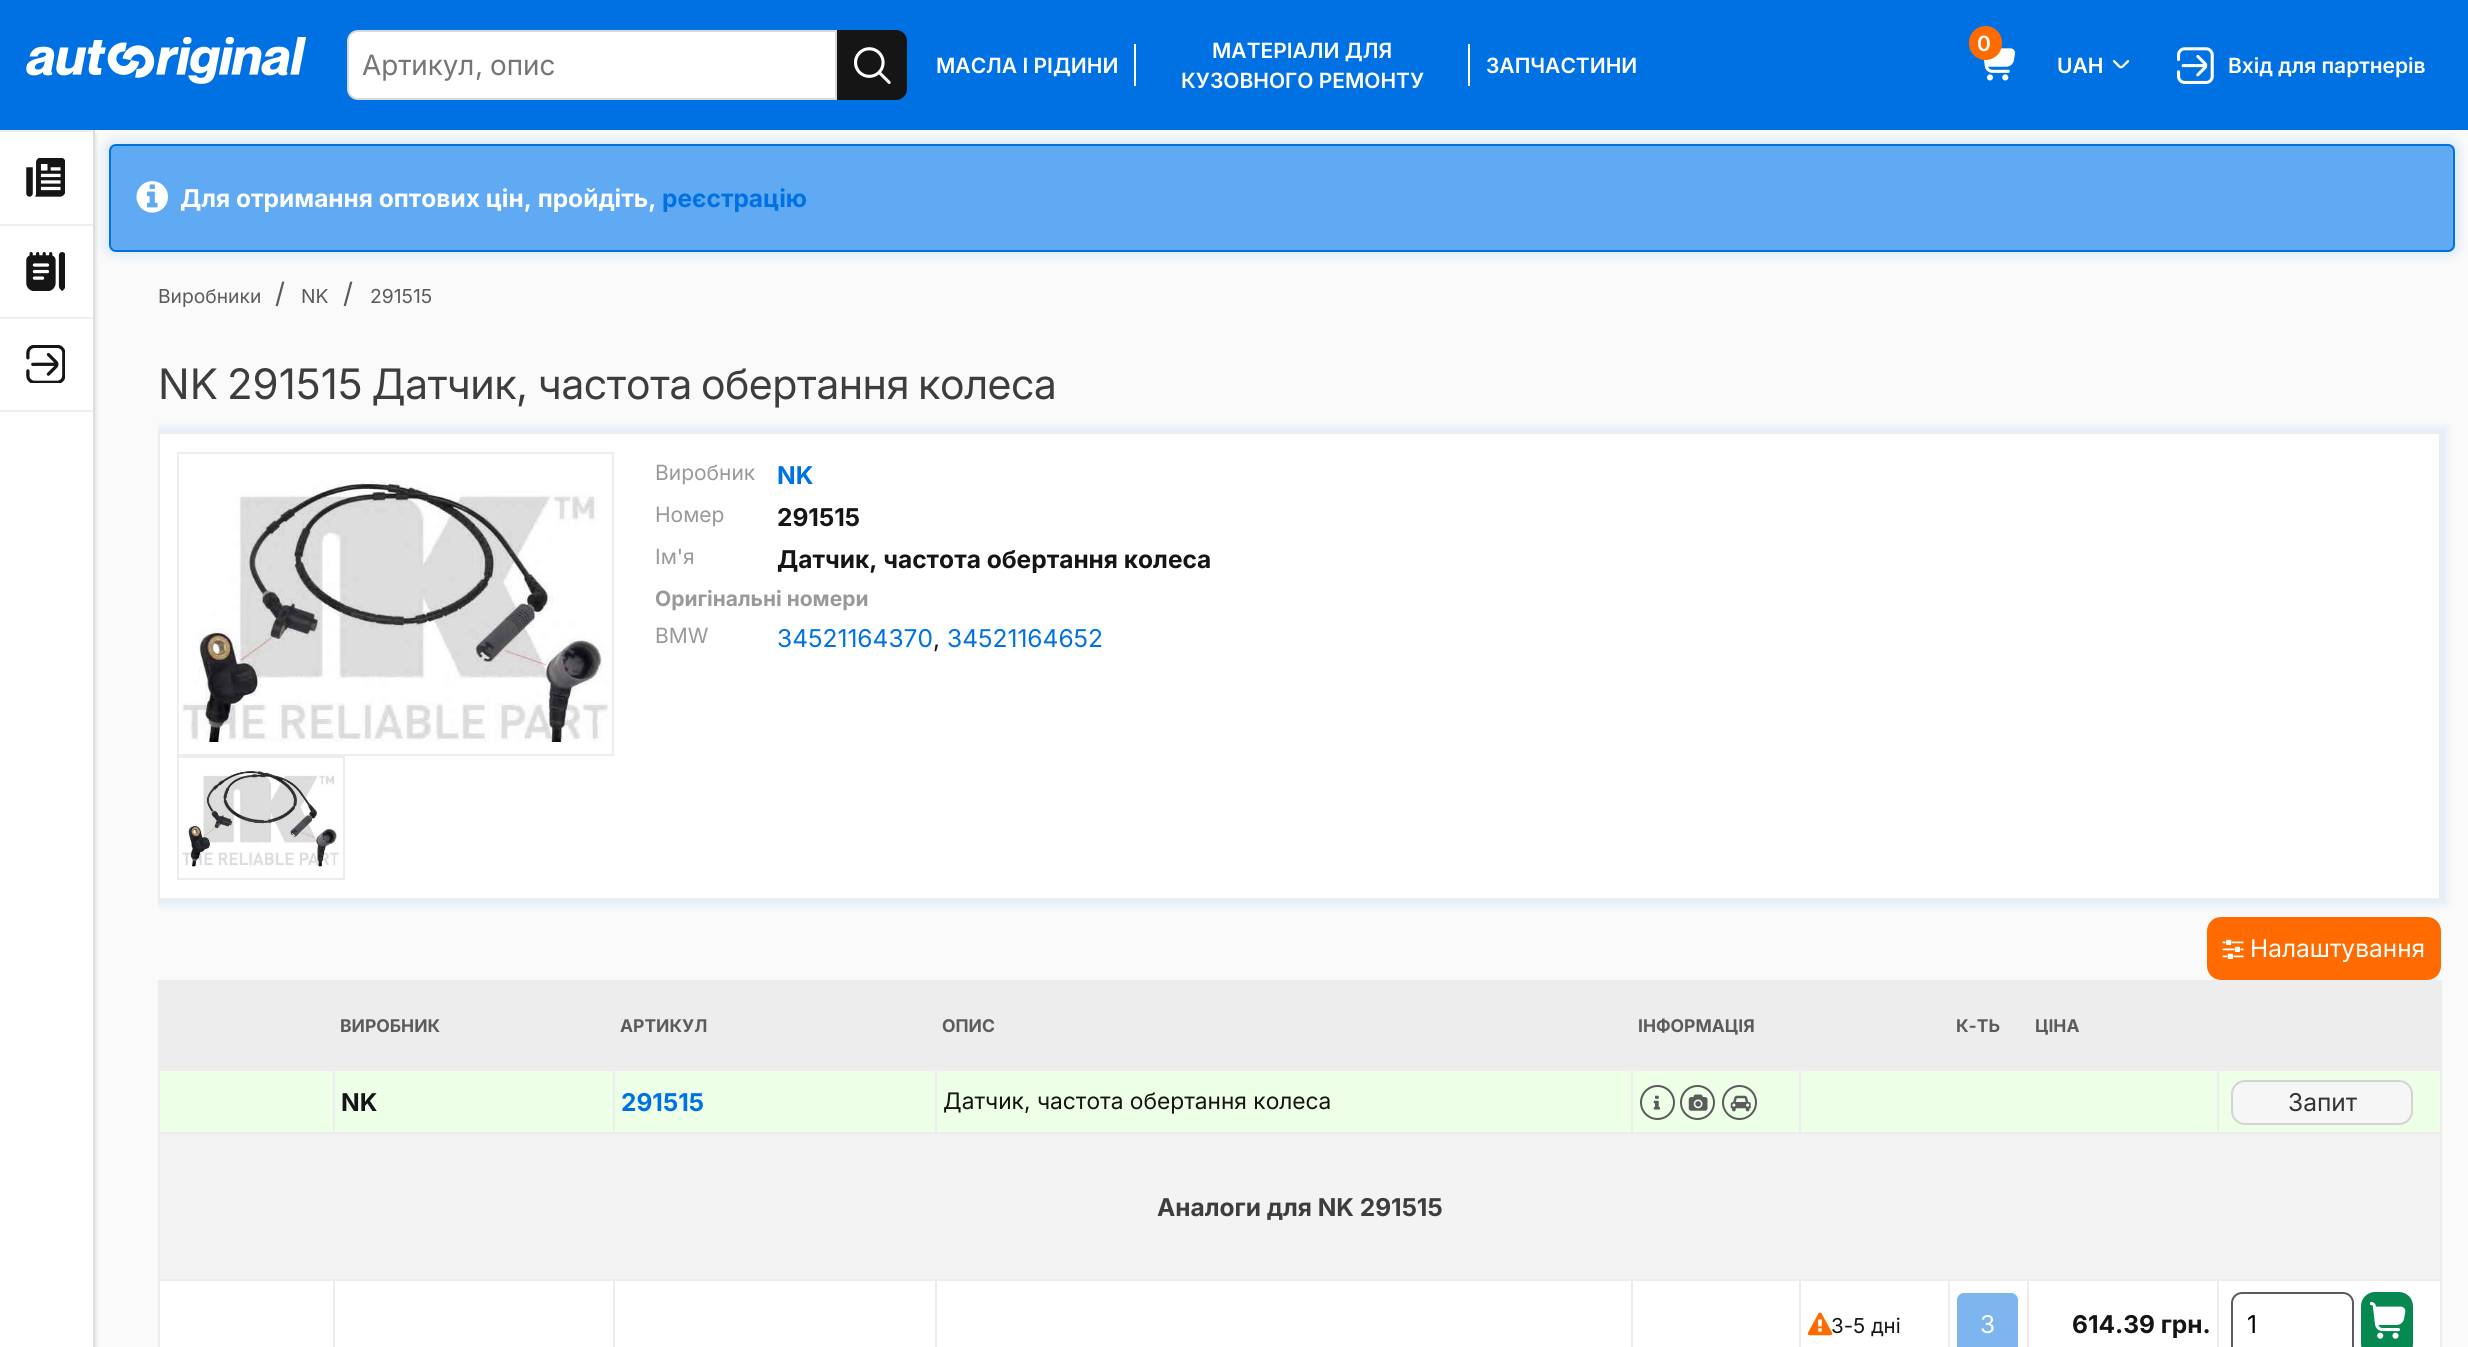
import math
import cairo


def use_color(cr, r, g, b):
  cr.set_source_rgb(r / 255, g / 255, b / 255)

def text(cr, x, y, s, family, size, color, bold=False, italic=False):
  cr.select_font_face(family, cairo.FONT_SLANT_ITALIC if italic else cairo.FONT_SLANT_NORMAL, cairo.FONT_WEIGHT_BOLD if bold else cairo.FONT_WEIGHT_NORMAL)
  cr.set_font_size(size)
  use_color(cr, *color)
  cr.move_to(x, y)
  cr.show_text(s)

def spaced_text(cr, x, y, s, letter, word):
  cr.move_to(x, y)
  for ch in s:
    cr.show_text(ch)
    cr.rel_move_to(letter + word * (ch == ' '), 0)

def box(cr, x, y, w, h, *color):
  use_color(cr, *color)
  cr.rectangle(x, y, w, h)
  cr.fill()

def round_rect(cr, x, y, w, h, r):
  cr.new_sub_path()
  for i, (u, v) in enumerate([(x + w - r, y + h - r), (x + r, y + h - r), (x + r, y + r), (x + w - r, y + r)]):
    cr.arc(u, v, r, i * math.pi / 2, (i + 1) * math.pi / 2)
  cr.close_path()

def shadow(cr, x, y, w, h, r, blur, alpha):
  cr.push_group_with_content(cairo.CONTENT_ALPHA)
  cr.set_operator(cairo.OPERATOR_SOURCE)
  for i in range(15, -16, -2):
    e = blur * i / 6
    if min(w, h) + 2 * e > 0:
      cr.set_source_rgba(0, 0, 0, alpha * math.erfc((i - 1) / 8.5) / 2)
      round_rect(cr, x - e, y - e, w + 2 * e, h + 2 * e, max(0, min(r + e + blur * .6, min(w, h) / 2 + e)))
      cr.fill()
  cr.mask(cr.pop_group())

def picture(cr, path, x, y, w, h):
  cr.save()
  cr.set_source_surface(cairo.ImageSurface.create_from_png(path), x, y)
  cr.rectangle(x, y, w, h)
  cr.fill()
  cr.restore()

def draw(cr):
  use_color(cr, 250, 250, 250)
  cr.paint()
  use_color(cr, 0, 0, 0)
  shadow(cr, 11, 135, 84, 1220, 0, 2.5, 0.15)
  use_color(cr, 0, 113, 227)
  shadow(cr, 103, 138, 2358, 119, 12, 4.5, 0.1)
  box(cr, 0, 0, 2468, 130, 0, 113, 227)
  picture(cr, "img_01.png", 26, 37, 280, 47)
  use_color(cr, 255, 255, 255)
  cr.new_path()
  cr.move_to(358, 31)
  cr.line_to(836, 31)
  cr.line_to(836, 99)
  cr.line_to(358, 99)
  cr.curve_to(352.5, 99, 348, 94.5, 348, 89)
  cr.line_to(348, 41)
  cr.curve_to(348, 35.5, 352.5, 31, 358, 31)
  cr.close_path()
  cr.fill_preserve()
  use_color(cr, 217, 217, 217)
  cr.stroke()
  use_color(cr, 21, 21, 21)
  cr.new_path()
  cr.move_to(837, 30)
  cr.line_to(896, 30)
  cr.curve_to(902, 30, 907, 35, 907, 41)
  cr.line_to(907, 89)
  cr.curve_to(907, 95, 902, 100, 896, 100)
  cr.line_to(837, 100)
  cr.close_path()
  cr.fill()
  picture(cr, "img_02.png", 854, 47, 37, 37)
  box(cr, 1134, 44, 2, 42, 255, 255, 255)
  box(cr, 1468, 44, 2, 42, 255, 255, 255)
  picture(cr, "img_03.png", 1983, 48, 33, 33)
  use_color(cr, 255, 107, 0)
  round_rect(cr, 1969, 26, 33, 34, 16.5)
  cr.fill()
  picture(cr, "img_04.png", 2112, 60, 18, 9)
  picture(cr, "img_05.png", 2177, 47, 37, 37)
  box(cr, 0, 132, 93, 1215, 255, 255, 255)
  box(cr, 93, 130, 2, 1217, 221, 221, 221)
  box(cr, 0, 130, 93, 2, 238, 238, 238)
  box(cr, 0, 224, 93, 2, 238, 238, 238)
  picture(cr, "img_06.png", 26, 158, 39, 39)
  box(cr, 0, 317, 93, 2, 238, 238, 238)
  picture(cr, "img_07.png", 26, 252, 39, 39)
  box(cr, 0, 410, 93, 2, 238, 238, 238)
  picture(cr, "img_08.png", 26, 345, 39, 38)
  use_color(cr, 95, 170, 242)
  round_rect(cr, 110, 145, 2344, 106, 6)
  cr.fill_preserve()
  use_color(cr, 0, 113, 227)
  cr.stroke()
  picture(cr, "img_09.png", 136, 181, 32, 32)
  cr.save()
  cr.rectangle(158, 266, 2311, 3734)
  cr.clip()
  use_color(cr, 0, 113, 227)
  shadow(cr, 152, 427, 2295, 478, 0, 4.5, 0.1)
  cr.restore()
  use_color(cr, 255, 255, 255)
  cr.rectangle(159, 433, 2281, 466)
  cr.fill_preserve()
  use_color(cr, 237, 237, 237)
  cr.stroke()
  cr.rectangle(178, 453, 435, 302)
  cr.stroke()
  picture(cr, "img_10.png", 182, 480, 427, 262)
  cr.rectangle(178, 757, 166, 122)
  cr.stroke()
  picture(cr, "img_11.png", 182, 770, 157, 97)
  use_color(cr, 255, 107, 0)
  round_rect(cr, 2208, 918, 232, 61, 13)
  cr.fill_preserve()
  cr.stroke()
  picture(cr, "img_12.png", 2222, 939, 22, 20)
  box(cr, 160, 1281, 2280, 66, 255, 255, 255)
  box(cr, 158, 980, 2283, 2, 237, 237, 237)
  box(cr, 2440, 980, 2, 367, 237, 237, 237)
  box(cr, 158, 980, 2, 367, 237, 237, 237)
  box(cr, 160, 982, 2280, 89, 237, 237, 237)
  box(cr, 160, 1071, 2280, 61, 237, 255, 230)
  box(cr, 158, 1132, 2283, 2, 237, 237, 237)
  box(cr, 333, 1069, 2, 65, 237, 237, 237)
  box(cr, 613, 1069, 2, 65, 237, 237, 237)
  box(cr, 935, 1069, 2, 65, 237, 237, 237)
  box(cr, 1631, 1069, 2, 65, 237, 237, 237)
  cr.arc(1657.5, 1102.5, 16.5, 0, 2 * math.pi)
  use_color(cr, 91, 91, 91)
  cr.stroke()
  picture(cr, "img_13.png", 1653, 1095, 7, 15)
  cr.arc(1697.5, 1102.5, 16.5, 0, 2 * math.pi)
  cr.stroke()
  picture(cr, "img_14.png", 1688, 1094, 20, 17)
  cr.arc(1739.5, 1102.5, 16.5, 0, 2 * math.pi)
  cr.stroke()
  picture(cr, "img_15.png", 1730, 1095, 21, 17)
  box(cr, 1799, 1069, 2, 65, 237, 237, 237)
  box(cr, 2217, 1069, 2, 65, 237, 237, 237)
  use_color(cr, 246, 246, 246)
  round_rect(cr, 2232, 1081, 180, 43, 13)
  cr.fill_preserve()
  use_color(cr, 211, 211, 211)
  cr.stroke()
  box(cr, 160, 1134, 2280, 145, 243, 243, 243)
  box(cr, 2217, 1279, 224, 2, 237, 237, 237)
  box(cr, 2217, 1279, 2, 68, 237, 237, 237)
  box(cr, 2027, 1279, 192, 2, 237, 237, 237)
  box(cr, 2027, 1279, 2, 68, 237, 237, 237)
  box(cr, 1948, 1279, 80, 2, 237, 237, 237)
  box(cr, 1948, 1279, 2, 68, 237, 237, 237)
  box(cr, 1799, 1279, 151, 2, 237, 237, 237)
  box(cr, 1799, 1279, 2, 68, 237, 237, 237)
  box(cr, 1631, 1279, 170, 2, 237, 237, 237)
  box(cr, 1631, 1279, 2, 68, 237, 237, 237)
  box(cr, 935, 1279, 698, 2, 237, 237, 237)
  box(cr, 935, 1279, 2, 68, 237, 237, 237)
  box(cr, 613, 1279, 323, 2, 237, 237, 237)
  box(cr, 613, 1279, 2, 68, 237, 237, 237)
  box(cr, 333, 1279, 281, 2, 237, 237, 237)
  box(cr, 333, 1279, 2, 68, 237, 237, 237)
  box(cr, 158, 1279, 176, 2, 237, 237, 237)
  picture(cr, "img_16.png", 1807, 1312, 26, 24)
  use_color(cr, 125, 181, 239)
  round_rect(cr, 1957, 1293, 61, 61, 7)
  cr.fill()
  round_rect(cr, 2232, 1293, 121, 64, 10)
  use_color(cr, 91, 91, 91)
  cr.stroke()
  use_color(cr, 6, 136, 81)
  round_rect(cr, 2362, 1293, 50, 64, 13)
  cr.fill_preserve()
  cr.stroke()
  picture(cr, "img_17.png", 2370, 1302, 36, 37)
  text(cr, 362, 75, "Артикул", "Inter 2", 28, (117, 117, 117))
  text(cr, 475, 75, ",", "Inter", 28, (117, 117, 117))
  text(cr, 490, 75, "опис", "Inter 2", 28, (117, 117, 117))
  text(cr, 936, 73, "МАСЛА І РІДИНИ", "Inter SemiBold", 21, (255, 255, 255))
  text(cr, 1212, 58, "МАТЕРІАЛИ ДЛЯ", "Inter SemiBold", 21, (255, 255, 255))
  text(cr, 1181, 88, "КУЗОВНОГО РЕМОНТУ", "Inter SemiBold", 21, (255, 255, 255))
  text(cr, 1486, 73, "ЗАПЧАСТИНИ", "Inter SemiBold", 21, (255, 255, 255))
  text(cr, 1977, 51, "0", "Inter SemiBold", 21, (255, 255, 255))
  text(cr, 2057, 73, "UAH", "Inter SemiBold", 21, (255, 255, 255))
  text(cr, 2228, 73, "Вхід для партнерів", "Inter SemiBold", 21, (255, 255, 255))
  text(cr, 180, 207, "Для отримання оптових цін, пройдіть,", "Inter", 24.5, (255, 255, 255), bold=True)
  text(cr, 662, 207, "реєстрацію", "Inter", 24.5, (0, 113, 227), bold=True)
  text(cr, 158, 303, "Виробники", "Inter", 19.25, (91, 91, 91))
  text(cr, 275, 303, "/", "Inter 2", 28, (91, 91, 91))
  text(cr, 301, 303, "NK", "Inter", 19.25, (91, 91, 91))
  text(cr, 343, 303, "/", "Inter 2", 28, (91, 91, 91))
  text(cr, 370, 303, "291515", "Inter", 19.25, (91, 91, 91))
  text(cr, 158, 399, "NK", "Inter", 42, (61, 61, 61))
  text(cr, 227, 399, "291515", "Inter", 42, (61, 61, 61))
  text(cr, 372, 399, "Датчик", "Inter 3", 42, (61, 61, 61))
  text(cr, 516, 399, ",", "Inter", 42, (61, 61, 61))
  cr.select_font_face("Inter 3")
  spaced_text(cr, 538, 399, "частота обертання колеса", 0, -2)
  text(cr, 655, 480, "Виробник", "Inter", 21, (153, 153, 153))
  text(cr, 777, 484, "NK", "Inter", 24.5, (0, 113, 227), bold=True)
  text(cr, 655, 522, "Номер", "Inter", 21, (153, 153, 153))
  text(cr, 777, 526, "291515", "Inter", 24.5, (21, 21, 21), bold=True)
  text(cr, 655, 564, "Ім'я", "Inter", 21, (153, 153, 153))
  text(cr, 777, 568, "Датчик, частота обертання колеса", "Inter", 24.5, (21, 21, 21), bold=True)
  text(cr, 655, 606, "Оригінальні номери", "Inter", 21, (153, 153, 153), bold=True)
  text(cr, 655, 643, "BMW", "Inter", 21, (153, 153, 153))
  text(cr, 777, 647, "34521164370", "Inter", 24.5, (0, 113, 227))
  text(cr, 933, 647, ",", "Inter", 24.5, (21, 21, 21))
  text(cr, 947, 647, "34521164652", "Inter", 24.5, (0, 113, 227))
  text(cr, 2250, 957, "Налаштування", "Inter", 24.5, (255, 255, 255))
  text(cr, 340, 1032, "ВИРОБНИК", "Inter", 17.5, (91, 91, 91), bold=True)
  text(cr, 620, 1032, "АРТИКУЛ", "Inter", 17.5, (91, 91, 91), bold=True)
  text(cr, 942, 1032, "ОПИС", "Inter", 17.5, (91, 91, 91), bold=True)
  text(cr, 1638, 1032, "ІНФОРМАЦІЯ", "Inter", 17.5, (91, 91, 91), bold=True)
  text(cr, 1956, 1032, "К-ТЬ", "Inter", 17.5, (91, 91, 91), bold=True)
  text(cr, 2035, 1032, "ЦІНА", "Inter", 17.5, (91, 91, 91), bold=True)
  text(cr, 341, 1111, "NK", "Inter", 24.5, (21, 21, 21), bold=True)
  text(cr, 621, 1111, "291515", "Inter", 24.5, (0, 113, 227), bold=True)
  text(cr, 943, 1109, "Датчик, частота обертання колеса", "Inter", 22.75, (21, 21, 21))
  text(cr, 2288, 1111, "Запит", "Inter", 24.5, (51, 51, 51))
  text(cr, 1157, 1216, "Аналоги для NK 291515", "Inter", 24.5, (61, 61, 61), bold=True)
  text(cr, 1831, 1333, "3-5 дні", "Inter", 20.5, (21, 21, 21))
  text(cr, 1980, 1333, "3", "Inter", 24.5, (255, 255, 255))
  text(cr, 2072, 1333, "614.39 грн.", "Inter", 24.5, (21, 21, 21), bold=True)
  text(cr, 2247, 1333, "1", "Inter", 24.5, (0, 0, 0))


surface = cairo.ImageSurface(cairo.FORMAT_RGB24, 2468, 1347)
cr = cairo.Context(surface)
options = cairo.FontOptions()
options.set_hint_metrics(cairo.HINT_METRICS_OFF)
options.set_hint_style(cairo.HINT_STYLE_NONE)
cr.set_font_options(options)
cr.set_miter_limit(4)
draw(cr)
surface.write_to_png("out.png")
